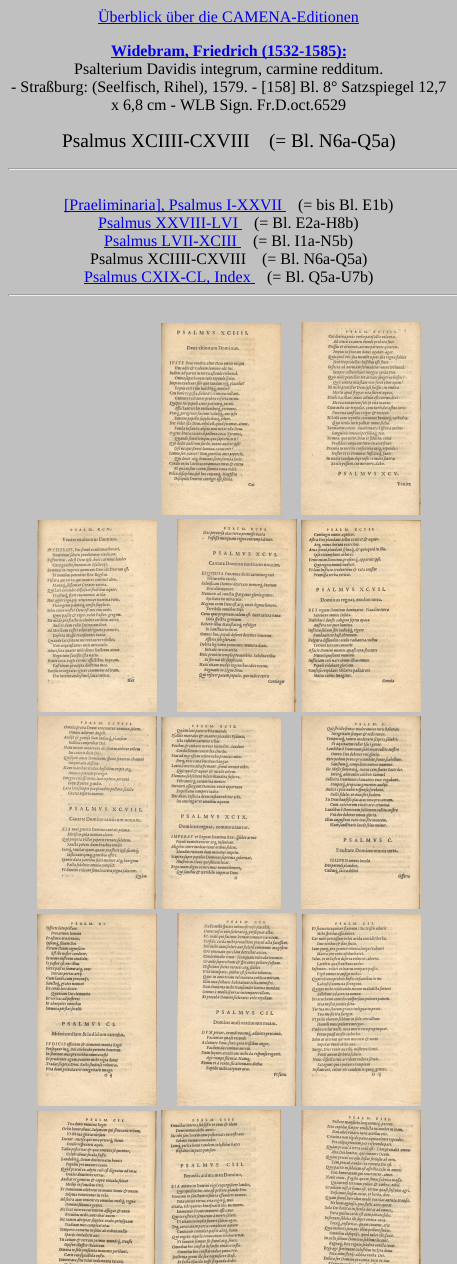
import math
import cairo


def use_color(cr, r, g, b):
  cr.set_source_rgb(r / 255, g / 255, b / 255)

def text(cr, x, y, s, family, size, color, bold=False, italic=False):
  cr.select_font_face(family, cairo.FONT_SLANT_ITALIC if italic else cairo.FONT_SLANT_NORMAL, cairo.FONT_WEIGHT_BOLD if bold else cairo.FONT_WEIGHT_NORMAL)
  cr.set_font_size(size)
  use_color(cr, *color)
  cr.move_to(x, y)
  cr.show_text(s)

def box(cr, x, y, w, h, *color):
  use_color(cr, *color)
  cr.rectangle(x, y, w, h)
  cr.fill()

def picture(cr, path, x, y, w, h):
  cr.save()
  cr.set_source_surface(cairo.ImageSurface.create_from_png(path), x, y)
  cr.rectangle(x, y, w, h)
  cr.fill()
  cr.restore()

def draw(cr):
  use_color(cr, 192, 192, 192)
  cr.paint()
  box(cr, 98, 23, 261, 1, 0, 0, 238)
  box(cr, 111, 57, 235, 1, 0, 0, 238)
  box(cr, 8, 168, 449, 1, 159, 159, 159)
  box(cr, 8, 169, 449, 1, 238, 238, 238)
  box(cr, 8, 168, 1, 2, 159, 159, 159)
  box(cr, 64, 211, 222, 1, 0, 0, 238)
  box(cr, 98, 229, 144, 1, 0, 0, 238)
  box(cr, 104, 247, 137, 1, 0, 0, 238)
  box(cr, 84, 283, 171, 1, 0, 0, 238)
  box(cr, 8, 294, 449, 1, 159, 159, 159)
  box(cr, 8, 295, 449, 1, 238, 238, 238)
  box(cr, 8, 294, 1, 2, 159, 159, 159)
  picture(cr, "img_01.png", 161, 323, 120, 192)
  picture(cr, "img_02.png", 301, 322, 120, 193)
  picture(cr, "img_03.png", 37, 520, 120, 192)
  picture(cr, "img_04.png", 177, 519, 120, 193)
  picture(cr, "img_05.png", 301, 520, 120, 192)
  picture(cr, "img_06.png", 37, 716, 120, 193)
  picture(cr, "img_07.png", 161, 717, 120, 192)
  picture(cr, "img_08.png", 301, 716, 120, 193)
  picture(cr, "img_09.png", 37, 914, 120, 192)
  picture(cr, "img_10.png", 177, 913, 120, 193)
  picture(cr, "img_11.png", 301, 914, 120, 192)
  picture(cr, "img_12.png", 37, 1111, 120, 153)
  picture(cr, "img_13.png", 161, 1110, 120, 154)
  picture(cr, "img_14.png", 301, 1110, 120, 154)
  text(cr, 98, 22, "Überblick über die CAMENA-Editionen", "Liberation Serif", 16, (0, 0, 238))
  text(cr, 111, 56, "Widebram, Friedrich (1532-1585):", "Liberation Serif", 16, (0, 0, 238), bold=True)
  text(cr, 74, 74, "Psalterium Davidis integrum, carmine redditum.", "Liberation Serif", 16, (0, 0, 0))
  text(cr, 11, 92, "- Straßburg: (Seelfisch, Rihel), 1579. - [158] Bl. 8° Satzspiegel 12,7", "Liberation Serif", 16, (0, 0, 0))
  text(cr, 111, 110, "x 6,8 cm - WLB Sign. Fr.D.oct.6529", "Liberation Serif", 16, (0, 0, 0))
  text(cr, 62, 147, "Psalmus XCIIII-CXVIII    (= Bl. N6a-Q5a)", "Liberation Serif", 19.25, (0, 0, 0))
  text(cr, 64, 210, "[Praeliminaria], Psalmus I-XXVII", "Liberation Serif", 16, (0, 0, 238))
  text(cr, 298, 210, "(= bis Bl. E1b)", "Liberation Serif", 16, (0, 0, 0))
  text(cr, 98, 228, "Psalmus XXVIII-LVI", "Liberation Serif", 16, (0, 0, 238))
  text(cr, 254, 228, "(= Bl. E2a-H8b)", "Liberation Serif", 16, (0, 0, 0))
  text(cr, 104, 246, "Psalmus LVII-XCIII", "Liberation Serif", 16, (0, 0, 238))
  text(cr, 253, 246, "(= Bl. I1a-N5b)", "Liberation Serif", 16, (0, 0, 0))
  text(cr, 90, 264, "Psalmus XCIIII-CXVIII    (= Bl. N6a-Q5a)", "Liberation Serif", 16, (0, 0, 0))
  text(cr, 84, 282, "Psalmus CXIX-CL, Index", "Liberation Serif", 16, (0, 0, 238))
  text(cr, 267, 282, "(= Bl. Q5a-U7b)", "Liberation Serif", 16, (0, 0, 0))


surface = cairo.ImageSurface(cairo.FORMAT_RGB24, 457, 1264)
cr = cairo.Context(surface)
options = cairo.FontOptions()
options.set_hint_metrics(cairo.HINT_METRICS_OFF)
options.set_hint_style(cairo.HINT_STYLE_NONE)
cr.set_font_options(options)
cr.set_miter_limit(4)
draw(cr)
surface.write_to_png("out.png")
